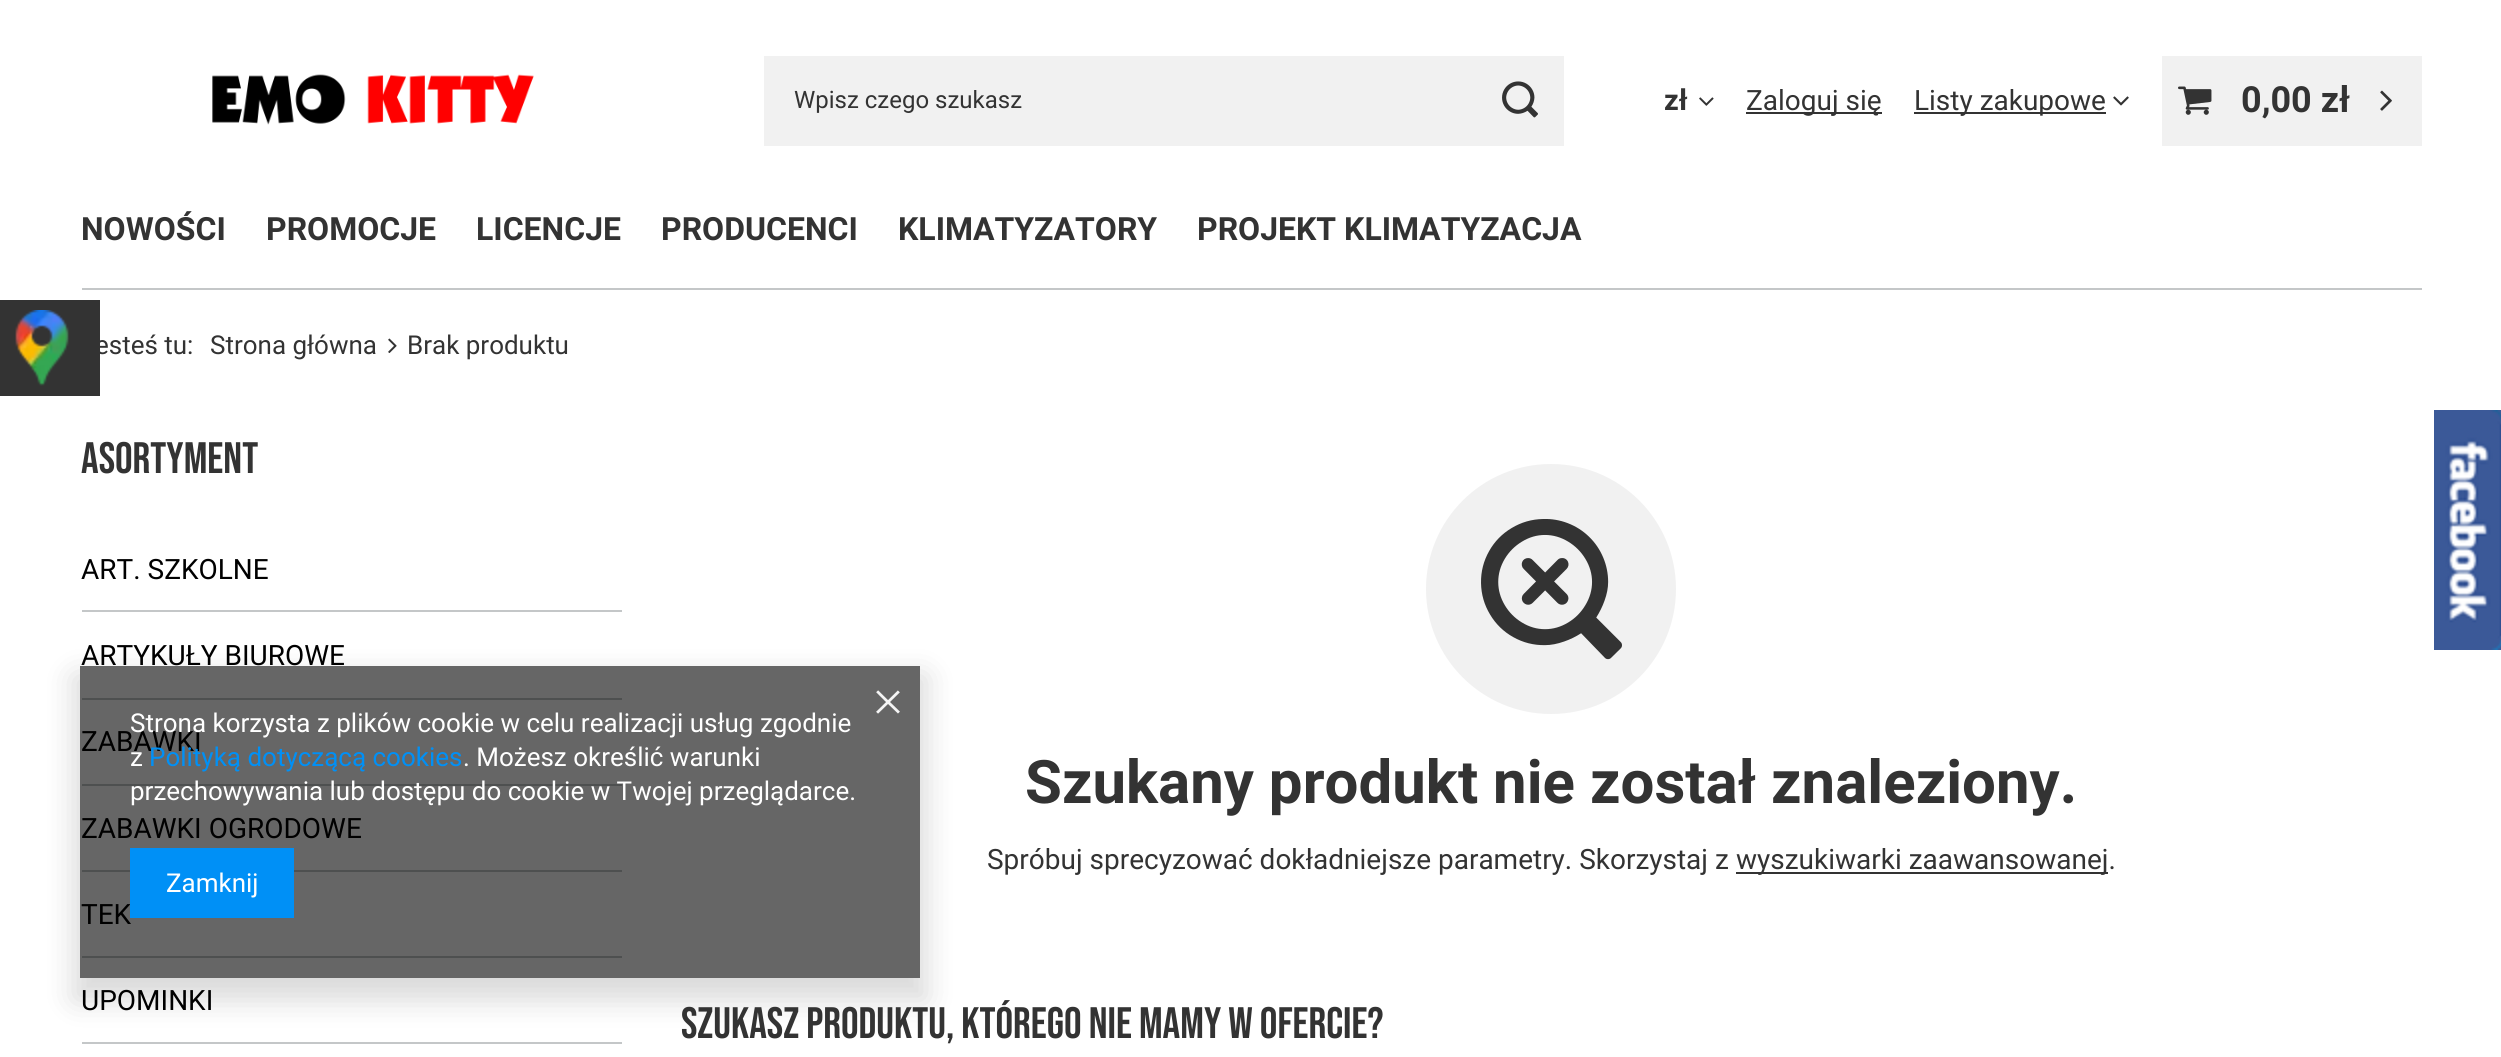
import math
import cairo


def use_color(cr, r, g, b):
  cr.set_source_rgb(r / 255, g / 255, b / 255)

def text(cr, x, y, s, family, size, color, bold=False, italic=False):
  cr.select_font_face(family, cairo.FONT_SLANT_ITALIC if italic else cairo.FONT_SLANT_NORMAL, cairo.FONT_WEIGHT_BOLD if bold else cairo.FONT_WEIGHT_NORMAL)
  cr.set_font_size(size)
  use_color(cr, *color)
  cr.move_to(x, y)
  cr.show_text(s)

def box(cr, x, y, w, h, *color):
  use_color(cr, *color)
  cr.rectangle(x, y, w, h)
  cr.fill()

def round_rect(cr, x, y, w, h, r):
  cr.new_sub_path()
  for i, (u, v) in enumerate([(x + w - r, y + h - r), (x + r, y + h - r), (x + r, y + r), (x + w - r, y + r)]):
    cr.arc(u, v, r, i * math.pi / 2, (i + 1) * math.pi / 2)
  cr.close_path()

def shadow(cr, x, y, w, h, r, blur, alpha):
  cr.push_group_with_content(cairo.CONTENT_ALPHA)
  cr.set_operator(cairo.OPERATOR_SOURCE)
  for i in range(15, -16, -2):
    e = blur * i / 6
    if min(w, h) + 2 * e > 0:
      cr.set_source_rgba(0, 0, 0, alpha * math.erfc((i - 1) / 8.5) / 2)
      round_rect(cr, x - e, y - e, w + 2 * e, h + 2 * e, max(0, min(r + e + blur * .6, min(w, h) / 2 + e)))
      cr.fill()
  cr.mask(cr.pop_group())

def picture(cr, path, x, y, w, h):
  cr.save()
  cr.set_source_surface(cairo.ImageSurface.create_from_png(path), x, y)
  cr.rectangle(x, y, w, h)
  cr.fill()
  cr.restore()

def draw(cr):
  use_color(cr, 255, 255, 255)
  cr.paint()
  box(cr, 80, 666, 840, 312, 102, 102, 102)
  box(cr, 0, 300, 100, 96, 51, 51, 51)
  picture(cr, "img_01.png", 15, 310, 54, 76)
  picture(cr, "img_02.png", 212, 74, 322, 51)
  box(cr, 764, 56, 800, 90, 241, 241, 241)
  picture(cr, "img_03.png", 1502, 81, 36, 37)
  picture(cr, "img_04.png", 1699, 97, 15, 9)
  box(cr, 1746, 112, 136, 2, 51, 51, 51)
  box(cr, 1914, 112, 192, 2, 51, 51, 51)
  picture(cr, "img_05.png", 2113, 96, 16, 10)
  box(cr, 2162, 56, 260, 90, 241, 241, 241)
  picture(cr, "img_06.png", 2178, 86, 34, 29)
  picture(cr, "img_07.png", 2380, 90, 12, 21)
  box(cr, 82, 288, 2340, 2, 196, 199, 200)
  picture(cr, "img_08.png", 388, 338, 9, 15)
  box(cr, 82, 610, 540, 2, 196, 199, 200)
  box(cr, 82, 698, 540, 2, 78, 80, 80)
  box(cr, 82, 784, 540, 2, 78, 80, 80)
  box(cr, 82, 870, 540, 2, 78, 80, 80)
  box(cr, 82, 956, 540, 2, 78, 80, 80)
  box(cr, 82, 1042, 540, 2, 196, 199, 200)
  use_color(cr, 241, 241, 241)
  cr.arc(1551, 589, 125, 0, 2 * math.pi)
  cr.fill()
  picture(cr, "img_09.png", 1481, 519, 141, 141)
  box(cr, 1736, 872, 372, 2, 51, 51, 51)
  picture(cr, "img_10.png", 2434, 410, 67, 240)
  cr.save()
  cr.set_fill_rule(cairo.FILL_RULE_EVEN_ODD)
  cr.new_path()
  cr.move_to(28, 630)
  cr.line_to(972, 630)
  cr.line_to(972, 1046)
  cr.line_to(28, 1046)
  cr.close_path()
  cr.move_to(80, 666)
  cr.line_to(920, 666)
  cr.line_to(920, 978)
  cr.line_to(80, 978)
  cr.close_path()
  cr.clip()
  use_color(cr, 0, 0, 0)
  shadow(cr, 74, 676, 852, 324, 0, 15, 0.15)
  cr.restore()
  picture(cr, "img_11.png", 876, 690, 24, 24)
  text(cr, 794, 108, "Wpisz czego szukasz", "Roboto", 24, (51, 51, 51))
  text(cr, 1664, 110, "zł", "Roboto", 29, (51, 51, 51), bold=True)
  text(cr, 1746, 110, "Zaloguj się", "Roboto", 28, (51, 51, 51))
  text(cr, 1914, 110, "Listy zakupowe", "Roboto", 28, (51, 51, 51))
  text(cr, 2241, 112, "0,00 zł", "Roboto", 36, (51, 51, 51), bold=True)
  text(cr, 81, 240, "NOWOŚCI", "Roboto", 32, (51, 51, 51), bold=True)
  text(cr, 266, 240, "PROMOCJE", "Roboto", 32, (51, 51, 51), bold=True)
  text(cr, 476, 240, "LICENCJE", "Roboto", 32, (51, 51, 51), bold=True)
  text(cr, 661, 240, "PRODUCENCI", "Roboto", 32, (51, 51, 51), bold=True)
  text(cr, 898, 240, "KLIMATYZATORY", "Roboto", 32, (51, 51, 51), bold=True)
  text(cr, 1197, 240, "PROJEKT KLIMATYZACJA", "Roboto", 32, (51, 51, 51), bold=True)
  text(cr, 95, 354, "esteś tu:", "Roboto", 26, (51, 51, 51))
  text(cr, 210, 354, "Strona główna", "Roboto", 26, (51, 51, 51))
  text(cr, 407, 354, "Brak produktu", "Roboto", 26, (51, 51, 51))
  text(cr, 81, 473, "Asortyment", "Bebas Neue", 44, (51, 51, 51))
  text(cr, 81, 579, "ART. SZKOLNE", "Roboto", 28, (0, 0, 0))
  text(cr, 81, 665, "ARTYKUŁY BIUROWE", "Roboto", 28, (0, 0, 0))
  text(cr, 81, 751, "ZABAWKI", "Roboto", 28, (0, 0, 0))
  text(cr, 81, 838, "ZABAWKI OGRODOWE", "Roboto", 28, (0, 0, 0))
  text(cr, 81, 924, "TEK", "Roboto", 28, (0, 0, 0))
  text(cr, 81, 1010, "UPOMINKI", "Roboto", 28, (0, 0, 0))
  text(cr, 1025, 803, "Szukany produkt nie został znaleziony.", "Roboto", 60, (51, 51, 51), bold=True)
  text(cr, 987, 869, "Spróbuj sprecyzować dokładniejsze parametry. Skorzystaj z", "Roboto", 28, (51, 51, 51))
  text(cr, 1736, 869, "wyszukiwarki zaawansowanej.", "Roboto", 28, (51, 51, 51))
  text(cr, 681, 1038, "Szukasz produktu, którego nie mamy w ofercie?", "Bebas Neue", 44, (51, 51, 51))
  text(cr, 130, 732, "Strona korzysta z plików cookie w celu realizacji usług zgodnie", "Roboto", 26, (255, 255, 255))
  text(cr, 130, 766, "z", "Roboto", 26, (255, 255, 255))
  text(cr, 149, 766, "Polityką dotyczącą cookies", "Roboto", 26, (0, 144, 246))
  text(cr, 463, 766, ". Możesz określić warunki", "Roboto", 26, (255, 255, 255))
  text(cr, 130, 800, "przechowywania lub dostępu do cookie w Twojej przeglądarce.", "Roboto", 26, (255, 255, 255))
  box(cr, 130, 848, 164, 70, 0, 144, 246)
  text(cr, 166, 892, "Zamknij", "Roboto", 26, (255, 255, 255))


surface = cairo.ImageSurface(cairo.FORMAT_RGB24, 2501, 1057)
cr = cairo.Context(surface)
options = cairo.FontOptions()
options.set_hint_metrics(cairo.HINT_METRICS_OFF)
options.set_hint_style(cairo.HINT_STYLE_NONE)
cr.set_font_options(options)
cr.set_miter_limit(4)
draw(cr)
surface.write_to_png("out.png")
